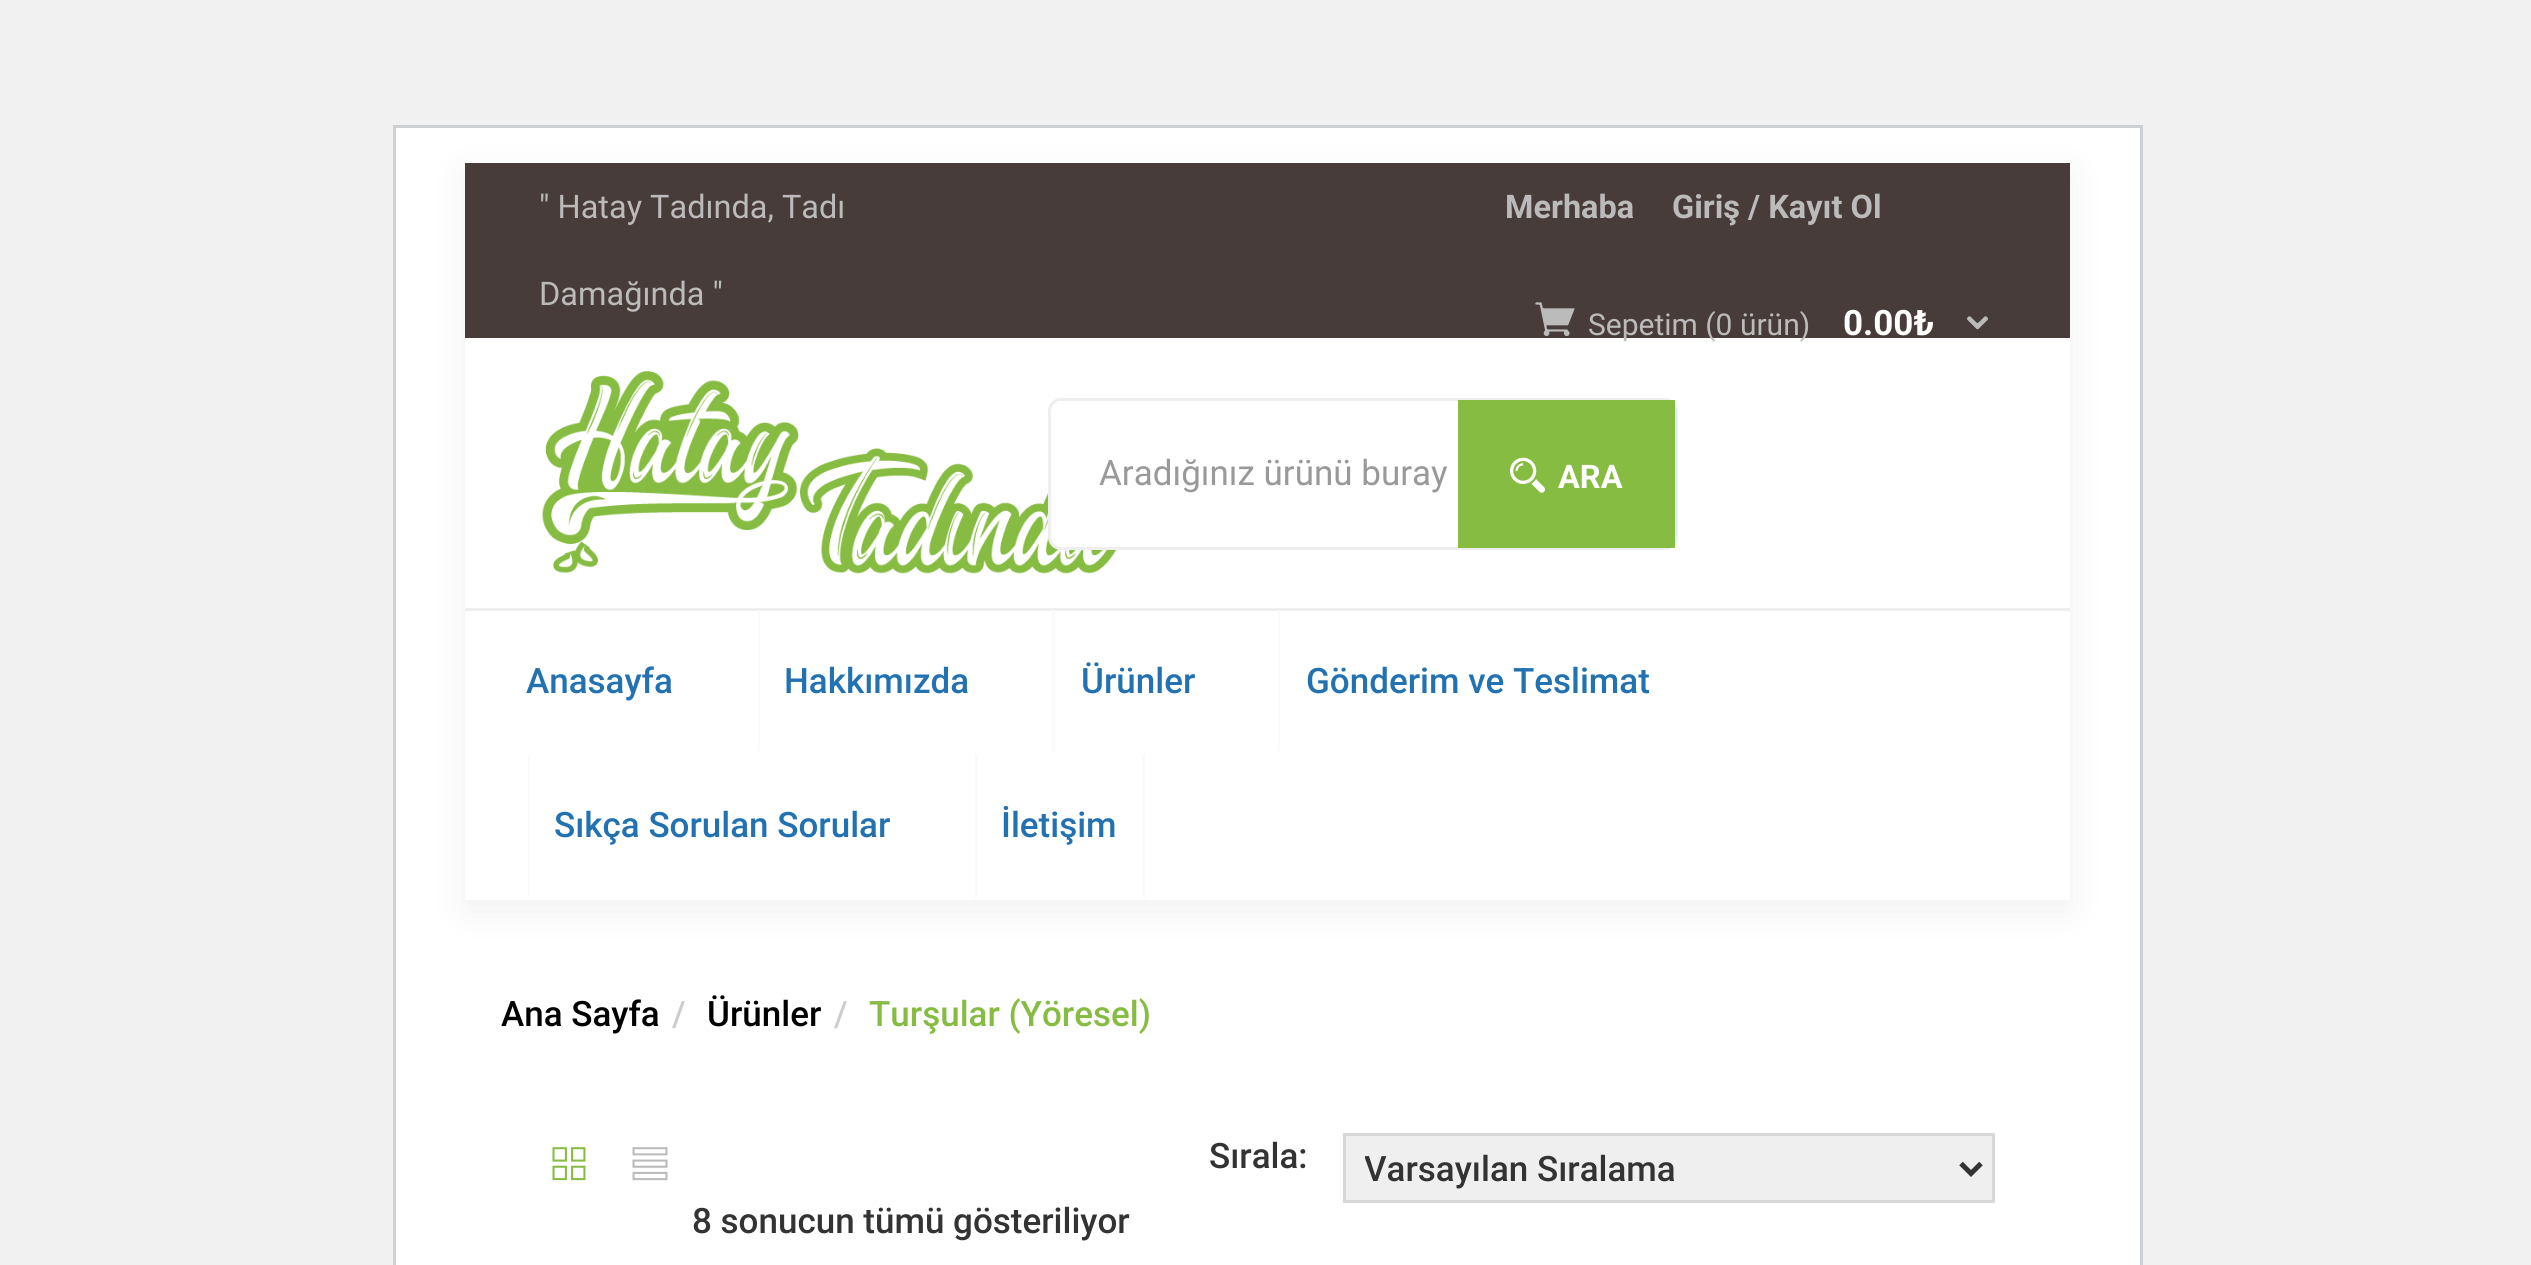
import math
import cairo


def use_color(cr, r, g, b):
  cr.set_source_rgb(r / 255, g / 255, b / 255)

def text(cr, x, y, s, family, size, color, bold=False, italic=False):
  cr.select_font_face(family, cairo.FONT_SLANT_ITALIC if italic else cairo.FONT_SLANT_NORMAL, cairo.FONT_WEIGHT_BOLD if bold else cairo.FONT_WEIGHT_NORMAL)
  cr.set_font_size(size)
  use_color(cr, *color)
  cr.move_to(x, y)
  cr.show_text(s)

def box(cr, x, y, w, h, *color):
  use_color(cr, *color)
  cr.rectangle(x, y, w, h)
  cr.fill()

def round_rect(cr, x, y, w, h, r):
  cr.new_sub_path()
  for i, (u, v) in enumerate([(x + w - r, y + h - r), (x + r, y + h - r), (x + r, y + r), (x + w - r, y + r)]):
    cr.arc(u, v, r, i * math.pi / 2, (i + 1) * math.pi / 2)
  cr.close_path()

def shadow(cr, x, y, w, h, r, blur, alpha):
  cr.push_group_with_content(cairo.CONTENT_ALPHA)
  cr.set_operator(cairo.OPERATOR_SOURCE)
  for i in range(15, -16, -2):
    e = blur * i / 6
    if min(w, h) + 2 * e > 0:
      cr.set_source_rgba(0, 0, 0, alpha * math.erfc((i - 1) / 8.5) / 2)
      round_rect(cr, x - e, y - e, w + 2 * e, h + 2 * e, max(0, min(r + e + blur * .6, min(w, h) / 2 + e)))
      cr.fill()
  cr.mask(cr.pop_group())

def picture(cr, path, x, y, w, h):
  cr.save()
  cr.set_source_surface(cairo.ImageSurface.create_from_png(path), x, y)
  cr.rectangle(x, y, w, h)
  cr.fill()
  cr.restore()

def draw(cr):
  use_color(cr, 241, 241, 241)
  cr.paint()
  use_color(cr, 255, 255, 255)
  cr.rectangle(394.5, 126.5, 1747, 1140)
  cr.fill_preserve()
  use_color(cr, 204, 208, 212)
  cr.set_line_width(3)
  cr.stroke()
  cr.save()
  cr.set_fill_rule(cairo.FILL_RULE_EVEN_ODD)
  cr.new_path()
  cr.move_to(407, 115)
  cr.line_to(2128, 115)
  cr.line_to(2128, 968)
  cr.line_to(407, 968)
  cr.close_path()
  cr.move_to(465, 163)
  cr.line_to(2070, 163)
  cr.line_to(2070, 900)
  cr.line_to(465, 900)
  cr.close_path()
  cr.clip()
  use_color(cr, 0, 0, 0)
  shadow(cr, 465, 173, 1605, 737, 0, 19, 0.06)
  cr.restore()
  box(cr, 465, 163, 1605, 175, 71, 60, 58)
  picture(cr, "img_01.png", 1535, 302, 40, 35)
  picture(cr, "img_02.png", 1967, 316, 21, 14)
  box(cr, 465, 608, 1605, 3, 238, 238, 238)
  picture(cr, "img_03.png", 542, 371, 575, 203)
  use_color(cr, 255, 255, 255)
  round_rect(cr, 1049.5, 399.5, 627, 149, 11.5)
  cr.fill_preserve()
  use_color(cr, 238, 238, 238)
  cr.stroke()
  box(cr, 1458, 400, 217, 148, 134, 188, 66)
  picture(cr, "img_04.png", 1510, 457, 35, 36)
  use_color(cr, 250, 250, 250)
  cr.new_path()
  cr.move_to(758, 755)
  cr.line_to(758, 610)
  cr.line_to(760, 610)
  cr.line_to(760, 748)
  cr.close_path()
  cr.fill()
  cr.new_path()
  cr.move_to(1052, 755)
  cr.line_to(1052, 610)
  cr.line_to(1055, 610)
  cr.line_to(1055, 748)
  cr.close_path()
  cr.fill()
  cr.new_path()
  cr.move_to(1278, 755)
  cr.line_to(1278, 610)
  cr.line_to(1280, 610)
  cr.line_to(1280, 748)
  cr.close_path()
  cr.fill()
  cr.new_path()
  cr.move_to(528, 900)
  cr.line_to(528, 755)
  cr.line_to(530, 755)
  cr.line_to(530, 892)
  cr.close_path()
  cr.fill()
  cr.new_path()
  cr.move_to(1145, 755)
  cr.line_to(1145, 900)
  cr.line_to(1142, 892)
  cr.line_to(1142, 755)
  cr.close_path()
  cr.fill()
  cr.new_path()
  cr.move_to(975, 900)
  cr.line_to(975, 755)
  cr.line_to(978, 755)
  cr.line_to(978, 892)
  cr.close_path()
  cr.fill()
  picture(cr, "img_05.png", 552, 1147, 34, 34)
  picture(cr, "img_06.png", 632, 1147, 36, 34)
  use_color(cr, 239, 239, 239)
  cr.rectangle(1344.5, 1134.5, 649, 67)
  cr.fill_preserve()
  use_color(cr, 215, 215, 215)
  cr.stroke()
  cr.new_path()
  cr.move_to(1961, 1163.5)
  cr.line_to(1971, 1173.5)
  cr.line_to(1981, 1163.5)
  use_color(cr, 51, 51, 51)
  cr.set_line_width(5)
  cr.stroke()
  text(cr, 539, 218, "\" Hatay Tadında, Tadı", "Roboto", 32.5, (187, 187, 187))
  text(cr, 539, 305, "Damağında \"", "Roboto", 32.5, (187, 187, 187))
  text(cr, 1505, 218, "Merhaba", "Roboto", 32.5, (187, 187, 187), bold=True)
  text(cr, 1672, 218, "Giriş / Kayıt Ol", "Roboto", 32.5, (187, 187, 187), bold=True)
  text(cr, 1588, 335, "Sepetim (0 ürün)", "Roboto", 30, (187, 187, 187))
  text(cr, 1843, 335, "0.00₺", "Roboto", 35, (255, 255, 255), bold=True)
  text(cr, 1099, 485, "Aradığınız ürünü buray", "Roboto", 35, (153, 153, 153))
  text(cr, 1558, 488, "ARA", "Roboto", 32.5, (255, 255, 255), bold=True)
  text(cr, 526, 693, "Anasayfa", "Roboto Medium", 35, (34, 113, 177))
  text(cr, 784, 693, "Hakkımızda", "Roboto Medium", 35, (34, 113, 177))
  text(cr, 1081, 693, "Ürünler", "Roboto Medium", 35, (34, 113, 177))
  text(cr, 1306, 693, "Gönderim ve Teslimat", "Roboto Medium", 35, (34, 113, 177))
  text(cr, 554, 837, "Sıkça Sorulan Sorular", "Roboto Medium", 35, (34, 113, 177))
  text(cr, 1001, 837, "İletişim", "Roboto Medium", 35, (34, 113, 177))
  text(cr, 501, 1026, "Ana Sayfa", "Roboto Medium", 35, (0, 0, 0))
  text(cr, 672, 1026, "/", "Roboto Medium", 35, (204, 204, 204))
  text(cr, 707, 1026, "Ürünler", "Roboto Medium", 35, (0, 0, 0))
  text(cr, 834, 1026, "/", "Roboto Medium", 35, (204, 204, 204))
  text(cr, 869, 1026, "Turşular (Yöresel)", "Roboto Medium", 35, (134, 188, 66))
  text(cr, 1209, 1168, "Sırala:", "Roboto Medium", 35, (51, 51, 51))
  cr.save()
  cr.rectangle(1365, 1145, 578, 45)
  cr.clip()
  text(cr, 1364, 1181, "Varsayılan Sıralama", "Roboto Medium", 35, (51, 51, 51))
  cr.restore()
  text(cr, 692, 1233, "8 sonucun tümü gösteriliyor", "Roboto Medium", 35, (51, 51, 51))


surface = cairo.ImageSurface(cairo.FORMAT_RGB24, 2531, 1265)
cr = cairo.Context(surface)
options = cairo.FontOptions()
options.set_hint_metrics(cairo.HINT_METRICS_OFF)
options.set_hint_style(cairo.HINT_STYLE_NONE)
cr.set_font_options(options)
cr.set_miter_limit(4)
draw(cr)
surface.write_to_png("out.png")
